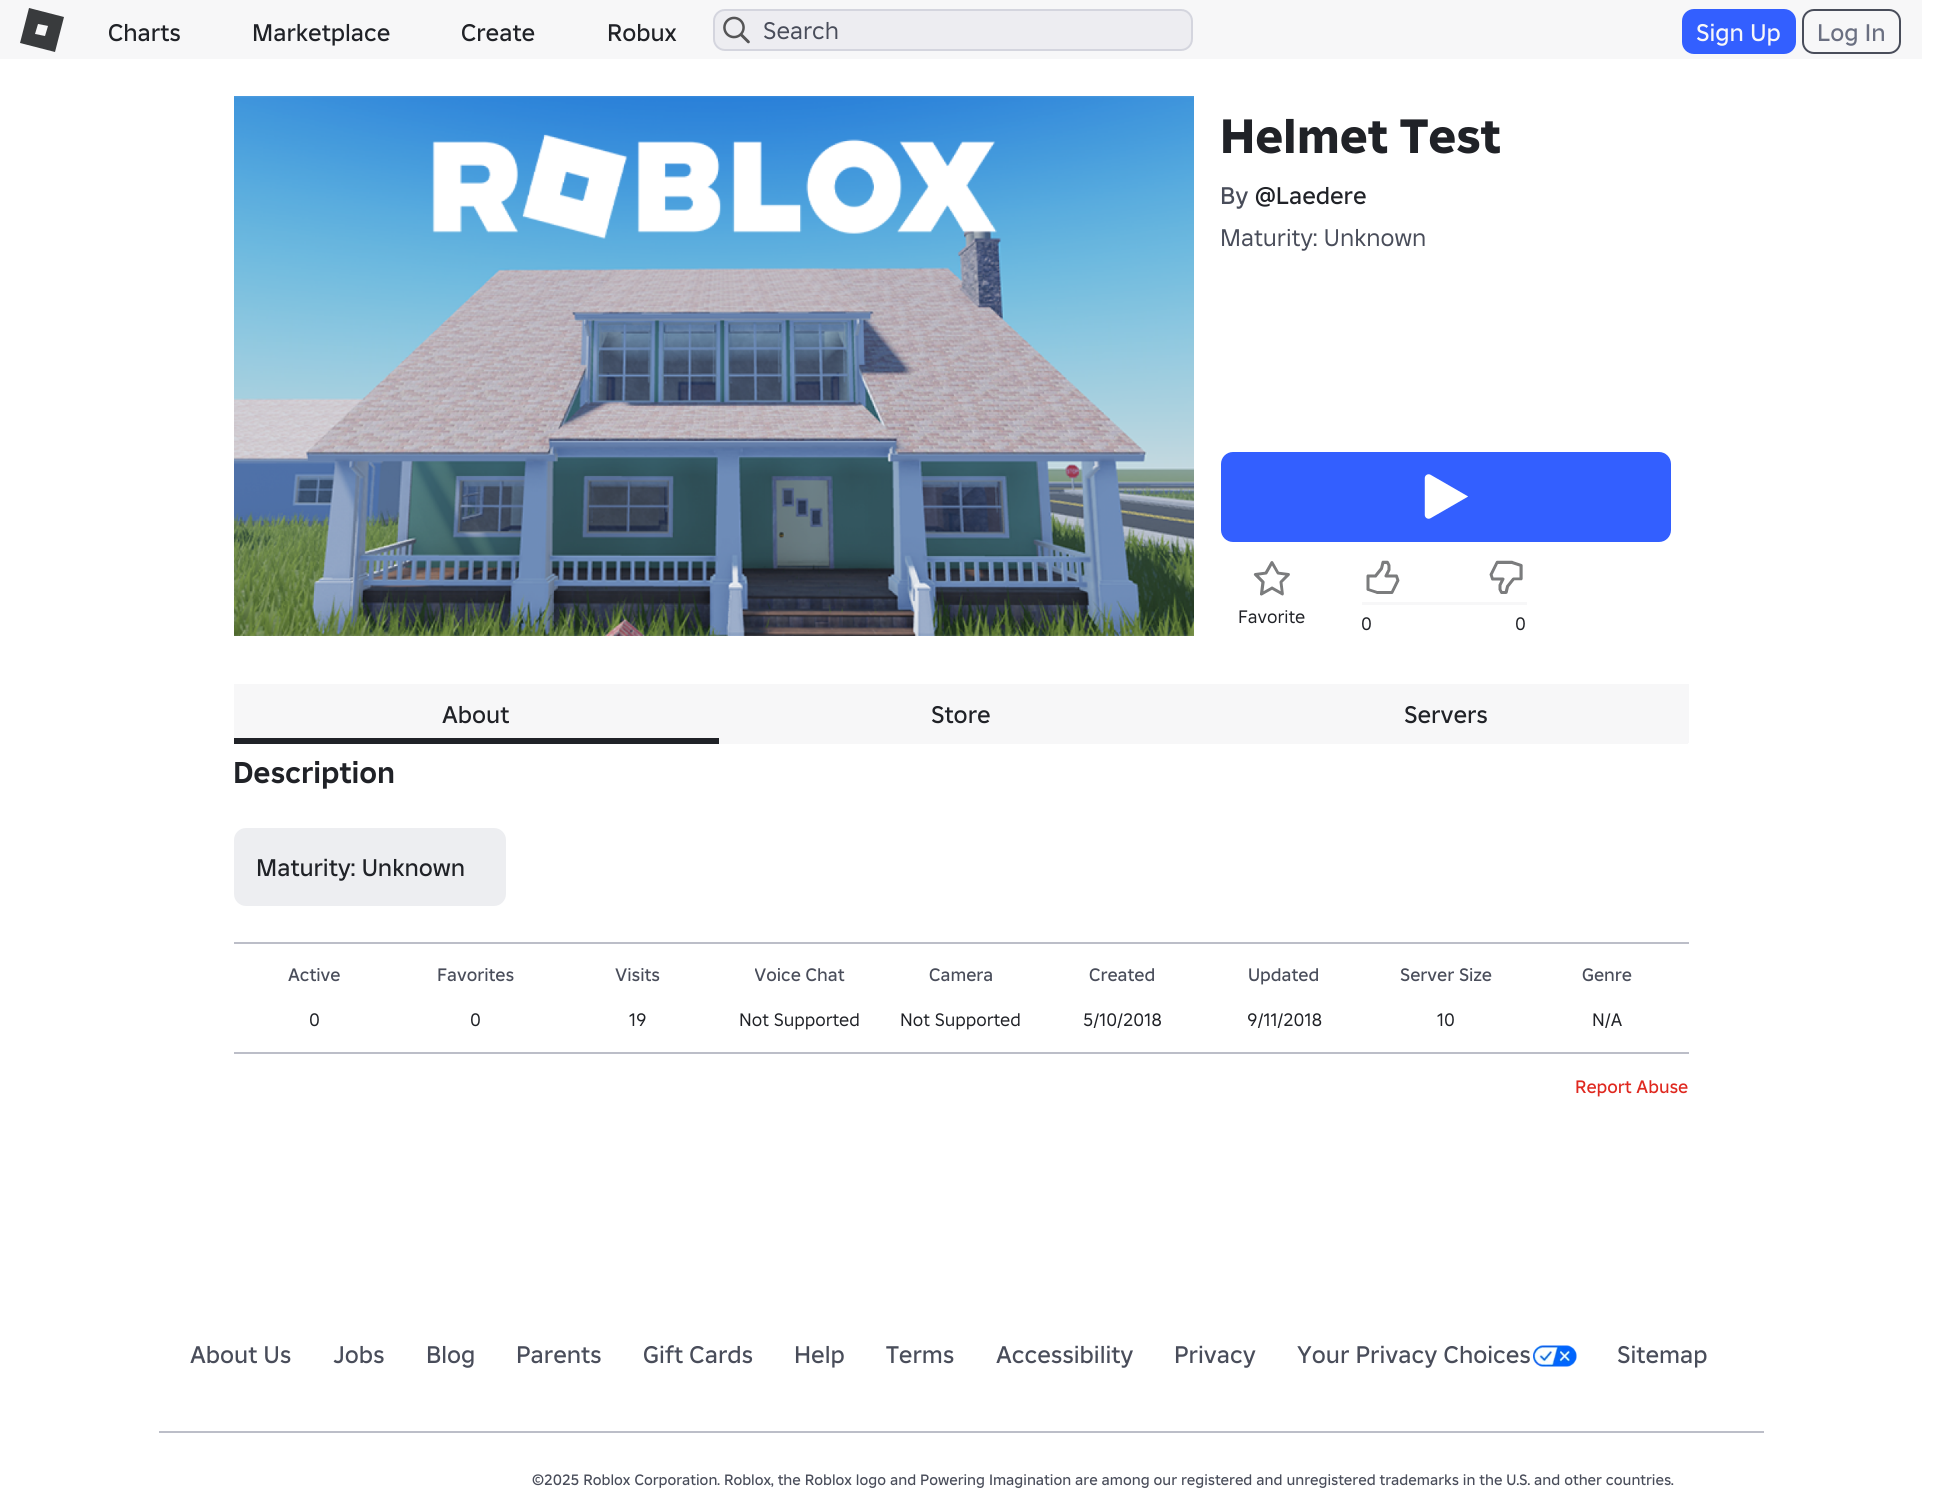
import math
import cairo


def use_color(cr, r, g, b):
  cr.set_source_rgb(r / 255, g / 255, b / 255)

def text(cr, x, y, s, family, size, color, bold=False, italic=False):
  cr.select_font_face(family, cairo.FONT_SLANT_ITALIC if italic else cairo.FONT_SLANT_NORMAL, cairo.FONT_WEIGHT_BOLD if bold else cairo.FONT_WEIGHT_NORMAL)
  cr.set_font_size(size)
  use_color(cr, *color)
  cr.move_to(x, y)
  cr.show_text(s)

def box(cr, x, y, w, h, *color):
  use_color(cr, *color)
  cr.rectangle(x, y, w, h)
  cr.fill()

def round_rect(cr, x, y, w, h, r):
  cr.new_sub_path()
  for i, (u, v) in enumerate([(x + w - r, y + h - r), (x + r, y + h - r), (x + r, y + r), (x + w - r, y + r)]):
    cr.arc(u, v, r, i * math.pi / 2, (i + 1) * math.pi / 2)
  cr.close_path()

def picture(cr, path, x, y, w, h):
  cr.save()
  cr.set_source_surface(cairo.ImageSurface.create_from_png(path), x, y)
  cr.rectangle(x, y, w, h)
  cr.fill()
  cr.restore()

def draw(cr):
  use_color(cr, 255, 255, 255)
  cr.paint()
  box(cr, 0, 0, 1922, 59, 247, 247, 248)
  use_color(cr, 57, 59, 61)
  cr.new_path()
  cr.move_to(29, 8)
  cr.line_to(20, 43)
  cr.line_to(55, 52)
  cr.line_to(64, 17)
  cr.close_path()
  cr.move_to(45, 36)
  cr.line_to(35, 34)
  cr.line_to(38, 24)
  cr.line_to(48, 26)
  cr.close_path()
  cr.fill()
  use_color(cr, 255, 255, 255)
  round_rect(cr, 713, 9, 480, 42, 12)
  cr.fill()
  cr.set_source_rgba(0.106, 0.145, 0.294, 0.08)
  round_rect(cr, 713, 9, 480, 42, 12)
  cr.fill()
  round_rect(cr, 714, 10, 478, 40, 11)
  cr.set_source_rgba(0.106, 0.145, 0.294, 0.12)
  cr.stroke()
  picture(cr, "img_01.png", 723, 16, 27, 28)
  use_color(cr, 51, 95, 255)
  round_rect(cr, 1682, 9, 114, 45, 12)
  cr.fill()
  round_rect(cr, 1803, 10, 97, 43, 11)
  use_color(cr, 73, 77, 90)
  cr.stroke()
  picture(cr, "img_02.png", 234, 96, 960, 540)
  use_color(cr, 51, 95, 255)
  round_rect(cr, 1221, 452, 450, 90, 12)
  cr.fill()
  picture(cr, "img_03.png", 1424, 474, 44, 45)
  picture(cr, "img_04.png", 1253, 561, 37, 35)
  picture(cr, "img_05.png", 1366, 560, 34, 34)
  picture(cr, "img_06.png", 1489, 560, 34, 34)
  box(cr, 1362, 602, 165, 3, 247, 247, 248)
  box(cr, 234, 684, 1455, 59, 247, 247, 248)
  box(cr, 234, 738, 485, 6, 32, 34, 39)
  box(cr, 719, 743, 969, 1, 247, 247, 248)
  use_color(cr, 237, 238, 241)
  round_rect(cr, 234, 828, 272, 78, 12)
  cr.fill()
  box(cr, 234, 942, 1455, 2, 188, 190, 200)
  box(cr, 234, 1052, 1455, 2, 188, 190, 200)
  picture(cr, "img_07.png", 1533, 1345, 44, 22)
  box(cr, 159, 1431, 1605, 2, 188, 190, 200)
  text(cr, 108, 41, "Charts", "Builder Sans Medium", 24, (32, 34, 39))
  text(cr, 252, 41, "Marketplace", "Builder Sans Medium", 24, (32, 34, 39))
  text(cr, 461, 41, "Create", "Builder Sans Medium", 24, (32, 34, 39))
  text(cr, 607, 41, "Robux", "Builder Sans Medium", 24, (32, 34, 39))
  text(cr, 763, 39, "Search", "Builder Sans", 24, (73, 77, 90))
  text(cr, 1696, 41, "Sign Up", "Builder Sans Medium", 24, (247, 247, 248))
  text(cr, 1817, 41, "Log In", "Builder Sans Medium", 24, (106, 111, 129))
  text(cr, 1220, 153, "Helmet Test", "Builder Sans ExtraBold", 48, (32, 34, 39))
  text(cr, 1220, 204, "By", "Builder Sans Medium", 24, (73, 77, 90))
  text(cr, 1255, 204, "@Laedere", "Builder Sans Medium", 24, (32, 34, 39))
  text(cr, 1220, 246, "Maturity: Unknown", "Builder Sans", 24, (73, 77, 90))
  text(cr, 1238, 623, "Favorite", "Builder Sans", 18, (32, 34, 39))
  text(cr, 1361, 630, "0", "Builder Sans", 18, (32, 34, 39))
  text(cr, 1515, 630, "0", "Builder Sans", 18, (32, 34, 39))
  text(cr, 442, 723, "About", "Builder Sans Medium", 24, (32, 34, 39))
  text(cr, 931, 723, "Store", "Builder Sans Medium", 24, (32, 34, 39))
  text(cr, 1404, 723, "Servers", "Builder Sans Medium", 24, (32, 34, 39))
  text(cr, 233, 783, "Description", "Builder Sans", 30, (32, 34, 39), bold=True)
  text(cr, 256, 876, "Maturity: Unknown", "Builder Sans Medium", 24, (32, 34, 39))
  text(cr, 288, 981, "Active", "Builder Sans Medium", 18, (73, 77, 90))
  text(cr, 309, 1026, "0", "Builder Sans", 18, (32, 34, 39))
  text(cr, 437, 981, "Favorites", "Builder Sans Medium", 18, (73, 77, 90))
  text(cr, 470, 1026, "0", "Builder Sans", 18, (32, 34, 39))
  text(cr, 615, 981, "Visits", "Builder Sans Medium", 18, (73, 77, 90))
  text(cr, 629, 1026, "19", "Builder Sans", 18, (32, 34, 39))
  cr.save()
  cr.rectangle(755, 962, 90, 27)
  cr.clip()
  text(cr, 754, 981, "Voice Chat", "Builder Sans Medium", 18, (73, 77, 90))
  cr.restore()
  text(cr, 739, 1026, "Not Supported", "Builder Sans", 18, (32, 34, 39))
  text(cr, 929, 981, "Camera", "Builder Sans Medium", 18, (73, 77, 90))
  text(cr, 900, 1026, "Not Supported", "Builder Sans", 18, (32, 34, 39))
  text(cr, 1089, 981, "Created", "Builder Sans Medium", 18, (73, 77, 90))
  text(cr, 1083, 1026, "5/10/2018", "Builder Sans", 18, (32, 34, 39))
  text(cr, 1248, 981, "Updated", "Builder Sans Medium", 18, (73, 77, 90))
  text(cr, 1247, 1026, "9/11/2018", "Builder Sans", 18, (32, 34, 39))
  text(cr, 1400, 981, "Server Size", "Builder Sans Medium", 18, (73, 77, 90))
  text(cr, 1437, 1026, "10", "Builder Sans", 18, (32, 34, 39))
  text(cr, 1582, 981, "Genre", "Builder Sans Medium", 18, (73, 77, 90))
  text(cr, 1592, 1026, "N/A", "Builder Sans", 18, (32, 34, 39))
  text(cr, 1575, 1093, "Report Abuse", "Builder Sans Medium", 18, (223, 40, 31))
  text(cr, 190, 1363, "About Us", "Builder Sans Medium", 24, (73, 77, 90))
  text(cr, 333, 1363, "Jobs", "Builder Sans Medium", 24, (73, 77, 90))
  text(cr, 426, 1363, "Blog", "Builder Sans Medium", 24, (73, 77, 90))
  text(cr, 516, 1363, "Parents", "Builder Sans Medium", 24, (73, 77, 90))
  text(cr, 643, 1363, "Gift Cards", "Builder Sans Medium", 24, (73, 77, 90))
  text(cr, 794, 1363, "Help", "Builder Sans Medium", 24, (73, 77, 90))
  text(cr, 886, 1363, "Terms", "Builder Sans Medium", 24, (73, 77, 90))
  text(cr, 996, 1363, "Accessibility", "Builder Sans Medium", 24, (73, 77, 90))
  text(cr, 1174, 1363, "Privacy", "Builder Sans Medium", 24, (73, 77, 90))
  text(cr, 1297, 1363, "Your Privacy Choices", "Builder Sans Medium", 24, (73, 77, 90))
  text(cr, 1617, 1363, "Sitemap", "Builder Sans Medium", 24, (73, 77, 90))
  text(cr, 532, 1485, "©2025 Roblox Corporation. Roblox, the Roblox logo and Powering Imagination are among our registered and unregistered trademarks in the U.S. and other countries.", "Builder Sans Medium", 15, (73, 77, 90))


surface = cairo.ImageSurface(cairo.FORMAT_RGB24, 1944, 1508)
cr = cairo.Context(surface)
options = cairo.FontOptions()
options.set_hint_metrics(cairo.HINT_METRICS_OFF)
options.set_hint_style(cairo.HINT_STYLE_NONE)
cr.set_font_options(options)
cr.set_miter_limit(4)
draw(cr)
surface.write_to_png("out.png")
